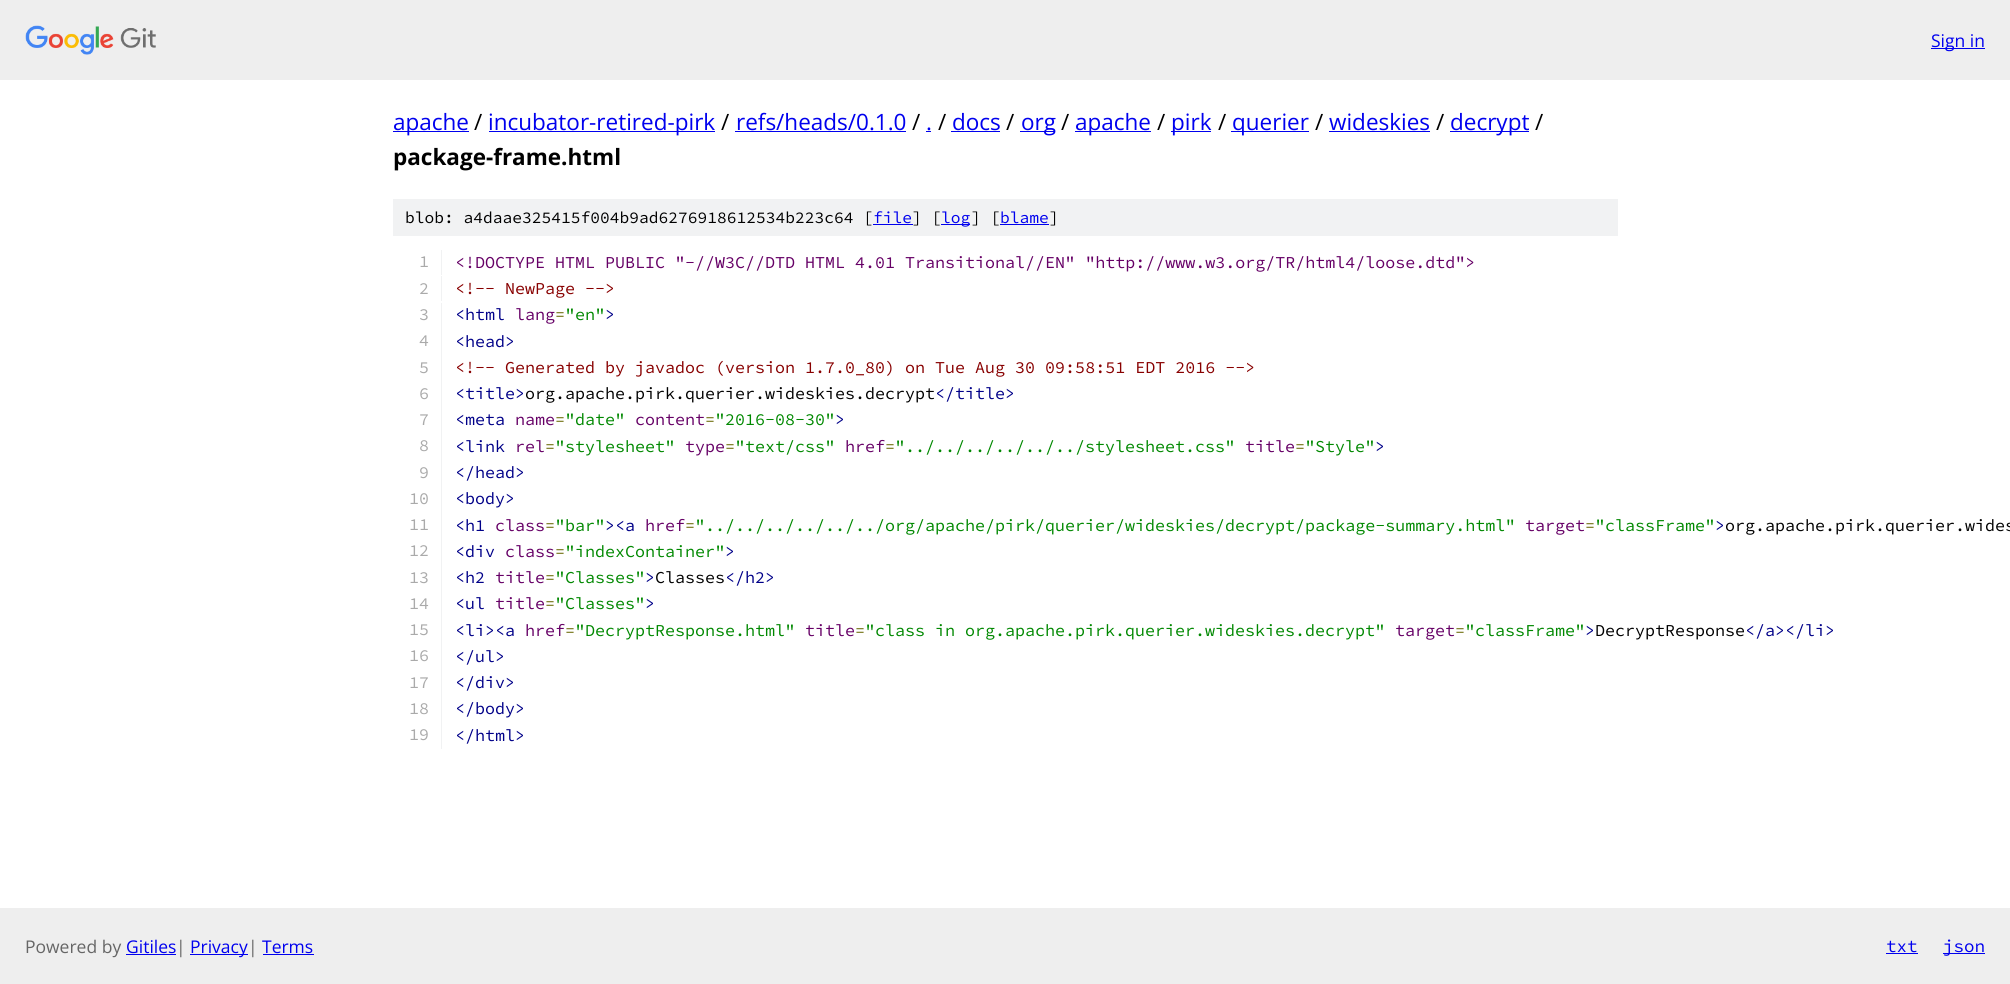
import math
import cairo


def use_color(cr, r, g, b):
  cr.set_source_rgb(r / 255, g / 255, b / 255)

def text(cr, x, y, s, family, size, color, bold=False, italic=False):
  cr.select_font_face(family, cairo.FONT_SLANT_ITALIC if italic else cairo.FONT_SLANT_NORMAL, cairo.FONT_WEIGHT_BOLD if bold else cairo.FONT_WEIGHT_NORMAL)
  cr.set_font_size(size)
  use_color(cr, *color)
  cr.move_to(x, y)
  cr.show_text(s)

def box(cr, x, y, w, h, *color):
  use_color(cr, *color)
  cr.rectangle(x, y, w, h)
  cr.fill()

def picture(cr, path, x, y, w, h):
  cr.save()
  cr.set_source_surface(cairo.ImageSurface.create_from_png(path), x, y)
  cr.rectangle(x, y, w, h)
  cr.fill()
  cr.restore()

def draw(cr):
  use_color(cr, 255, 255, 255)
  cr.paint()
  box(cr, 0, 0, 2010, 80, 238, 238, 238)
  picture(cr, "img_01.png", 25, 25, 131, 30)
  box(cr, 1931, 48, 54, 1, 0, 0, 238)
  box(cr, 393, 131, 76, 1, 0, 0, 238)
  box(cr, 489, 131, 226, 1, 0, 0, 238)
  box(cr, 735, 131, 171, 1, 0, 0, 238)
  box(cr, 926, 131, 5, 1, 0, 0, 238)
  box(cr, 951, 131, 49, 1, 0, 0, 238)
  box(cr, 1020, 131, 35, 1, 0, 0, 238)
  box(cr, 1075, 131, 76, 1, 0, 0, 238)
  box(cr, 1171, 131, 40, 1, 0, 0, 238)
  box(cr, 1231, 131, 78, 1, 0, 0, 238)
  box(cr, 1329, 131, 101, 1, 0, 0, 238)
  box(cr, 1450, 131, 79, 1, 0, 0, 238)
  box(cr, 393, 199, 1225, 37, 241, 242, 243)
  box(cr, 873, 224, 40, 1, 0, 0, 238)
  box(cr, 941, 224, 29, 1, 0, 0, 238)
  box(cr, 1000, 224, 49, 1, 0, 0, 238)
  box(cr, 441, 250, 1, 25, 241, 242, 243)
  box(cr, 441, 276, 1, 25, 241, 242, 243)
  box(cr, 441, 303, 1, 446, 241, 242, 243)
  box(cr, 0, 908, 2010, 76, 238, 238, 238)
  box(cr, 126, 954, 50, 1, 0, 0, 238)
  box(cr, 190, 954, 58, 1, 0, 0, 238)
  box(cr, 263, 954, 51, 1, 0, 0, 238)
  box(cr, 1886, 953, 32, 1, 0, 0, 238)
  box(cr, 1943, 953, 42, 1, 0, 0, 238)
  text(cr, 1931, 47, "Sign in", "Open Sans", 17.5, (0, 0, 238))
  text(cr, 393, 130, "apache", "Open Sans", 22.5, (0, 0, 238))
  text(cr, 474, 130, "/", "Open Sans", 22.5, (0, 0, 0))
  text(cr, 488, 130, "incubator-retired-pirk", "Open Sans", 22.5, (0, 0, 238))
  text(cr, 721, 130, "/", "Open Sans", 22.5, (0, 0, 0))
  text(cr, 736, 130, "refs/heads/0.1.0", "Open Sans", 22.5, (0, 0, 238))
  text(cr, 912, 130, "/", "Open Sans", 22.5, (0, 0, 0))
  text(cr, 926, 130, ".", "Open Sans", 22.5, (0, 0, 238))
  text(cr, 938, 130, "/", "Open Sans", 22.5, (0, 0, 0))
  text(cr, 952, 130, "docs", "Open Sans", 22.5, (0, 0, 238))
  text(cr, 1006, 130, "/", "Open Sans", 22.5, (0, 0, 0))
  text(cr, 1021, 130, "org", "Open Sans", 22.5, (0, 0, 238))
  text(cr, 1061, 130, "/", "Open Sans", 22.5, (0, 0, 0))
  text(cr, 1075, 130, "apache", "Open Sans", 22.5, (0, 0, 238))
  text(cr, 1157, 130, "/", "Open Sans", 22.5, (0, 0, 0))
  text(cr, 1171, 130, "pirk", "Open Sans", 22.5, (0, 0, 238))
  text(cr, 1218, 130, "/", "Open Sans", 22.5, (0, 0, 0))
  text(cr, 1232, 130, "querier", "Open Sans", 22.5, (0, 0, 238))
  text(cr, 1315, 130, "/", "Open Sans", 22.5, (0, 0, 0))
  text(cr, 1329, 130, "wideskies", "Open Sans", 22.5, (0, 0, 238))
  text(cr, 1436, 130, "/", "Open Sans", 22.5, (0, 0, 0))
  text(cr, 1450, 130, "decrypt", "Open Sans", 22.5, (0, 0, 238))
  text(cr, 1535, 130, "/", "Open Sans", 22.5, (0, 0, 0))
  text(cr, 393, 165, "package-frame.html", "Open Sans", 22.5, (0, 0, 0), bold=True)
  text(cr, 405, 223, "blob: a4daae325415f004b9ad6276918612534b223c64 [", "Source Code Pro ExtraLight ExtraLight", 16.25, (0, 0, 0))
  text(cr, 873, 223, "file", "Source Code Pro ExtraLight ExtraLight", 16.25, (0, 0, 238))
  text(cr, 912, 223, "] [", "Source Code Pro ExtraLight ExtraLight", 16.25, (0, 0, 0))
  text(cr, 941, 223, "log", "Source Code Pro ExtraLight ExtraLight", 16.25, (0, 0, 238))
  text(cr, 971, 223, "] [", "Source Code Pro ExtraLight ExtraLight", 16.25, (0, 0, 0))
  text(cr, 1000, 223, "blame", "Source Code Pro ExtraLight ExtraLight", 16.25, (0, 0, 238))
  text(cr, 1049, 223, "]", "Source Code Pro ExtraLight ExtraLight", 16.25, (0, 0, 0))
  text(cr, 419, 267, "1", "Source Code Pro ExtraLight ExtraLight", 16.67, (170, 170, 170))
  text(cr, 455, 268, "<!DOCTYPE HTML PUBLIC \"-//W3C//DTD HTML 4.01 Transitional//EN\" \"http://www.w3.org/TR/html4/loose.dtd\">", "Source Code Pro ExtraLight ExtraLight", 16.67, (102, 0, 102))
  text(cr, 419, 294, "2", "Source Code Pro ExtraLight ExtraLight", 16.67, (170, 170, 170))
  text(cr, 455, 294, "<!-- NewPage -->", "Source Code Pro ExtraLight ExtraLight", 16.67, (136, 0, 0))
  text(cr, 419, 320, "3", "Source Code Pro ExtraLight ExtraLight", 16.67, (170, 170, 170))
  text(cr, 455, 320, "<html", "Source Code Pro ExtraLight ExtraLight", 16.67, (0, 0, 136))
  text(cr, 515, 320, "lang", "Source Code Pro ExtraLight ExtraLight", 16.67, (102, 0, 102))
  text(cr, 555, 320, "=", "Source Code Pro ExtraLight ExtraLight", 16.67, (102, 102, 0))
  text(cr, 565, 320, "\"en\"", "Source Code Pro ExtraLight ExtraLight", 16.67, (0, 136, 0))
  text(cr, 605, 320, ">", "Source Code Pro ExtraLight ExtraLight", 16.67, (0, 0, 136))
  text(cr, 419, 346, "4", "Source Code Pro ExtraLight ExtraLight", 16.67, (170, 170, 170))
  text(cr, 455, 347, "<head>", "Source Code Pro ExtraLight ExtraLight", 16.67, (0, 0, 136))
  text(cr, 419, 373, "5", "Source Code Pro ExtraLight ExtraLight", 16.67, (170, 170, 170))
  text(cr, 455, 373, "<!-- Generated by javadoc (version 1.7.0_80) on Tue Aug 30 09:58:51 EDT 2016 -->", "Source Code Pro ExtraLight ExtraLight", 16.67, (136, 0, 0))
  text(cr, 419, 399, "6", "Source Code Pro ExtraLight ExtraLight", 16.67, (170, 170, 170))
  text(cr, 455, 399, "<title>", "Source Code Pro ExtraLight ExtraLight", 16.67, (0, 0, 136))
  text(cr, 525, 399, "org.apache.pirk.querier.wideskies.decrypt", "Source Code Pro ExtraLight ExtraLight", 16.67, (0, 0, 0))
  text(cr, 935, 399, "</title>", "Source Code Pro ExtraLight ExtraLight", 16.67, (0, 0, 136))
  text(cr, 419, 425, "7", "Source Code Pro ExtraLight ExtraLight", 16.67, (170, 170, 170))
  text(cr, 455, 425, "<meta", "Source Code Pro ExtraLight ExtraLight", 16.67, (0, 0, 136))
  text(cr, 515, 425, "name", "Source Code Pro ExtraLight ExtraLight", 16.67, (102, 0, 102))
  text(cr, 555, 425, "=", "Source Code Pro ExtraLight ExtraLight", 16.67, (102, 102, 0))
  text(cr, 565, 425, "\"date\"", "Source Code Pro ExtraLight ExtraLight", 16.67, (0, 136, 0))
  text(cr, 635, 425, "content", "Source Code Pro ExtraLight ExtraLight", 16.67, (102, 0, 102))
  text(cr, 705, 425, "=", "Source Code Pro ExtraLight ExtraLight", 16.67, (102, 102, 0))
  text(cr, 715, 425, "\"2016-08-30\"", "Source Code Pro ExtraLight ExtraLight", 16.67, (0, 136, 0))
  text(cr, 835, 425, ">", "Source Code Pro ExtraLight ExtraLight", 16.67, (0, 0, 136))
  text(cr, 419, 451, "8", "Source Code Pro ExtraLight ExtraLight", 16.67, (170, 170, 170))
  text(cr, 455, 452, "<link", "Source Code Pro ExtraLight ExtraLight", 16.67, (0, 0, 136))
  text(cr, 515, 452, "rel", "Source Code Pro ExtraLight ExtraLight", 16.67, (102, 0, 102))
  text(cr, 545, 452, "=", "Source Code Pro ExtraLight ExtraLight", 16.67, (102, 102, 0))
  text(cr, 555, 452, "\"stylesheet\"", "Source Code Pro ExtraLight ExtraLight", 16.67, (0, 136, 0))
  text(cr, 685, 452, "type", "Source Code Pro ExtraLight ExtraLight", 16.67, (102, 0, 102))
  text(cr, 725, 452, "=", "Source Code Pro ExtraLight ExtraLight", 16.67, (102, 102, 0))
  text(cr, 735, 452, "\"text/css\"", "Source Code Pro ExtraLight ExtraLight", 16.67, (0, 136, 0))
  text(cr, 845, 452, "href", "Source Code Pro ExtraLight ExtraLight", 16.67, (102, 0, 102))
  text(cr, 885, 452, "=", "Source Code Pro ExtraLight ExtraLight", 16.67, (102, 102, 0))
  text(cr, 895, 452, "\"../../../../../../stylesheet.css\"", "Source Code Pro ExtraLight ExtraLight", 16.67, (0, 136, 0))
  text(cr, 1245, 452, "title", "Source Code Pro ExtraLight ExtraLight", 16.67, (102, 0, 102))
  text(cr, 1295, 452, "=", "Source Code Pro ExtraLight ExtraLight", 16.67, (102, 102, 0))
  text(cr, 1305, 452, "\"Style\"", "Source Code Pro ExtraLight ExtraLight", 16.67, (0, 136, 0))
  text(cr, 1375, 452, ">", "Source Code Pro ExtraLight ExtraLight", 16.67, (0, 0, 136))
  text(cr, 419, 478, "9", "Source Code Pro ExtraLight ExtraLight", 16.67, (170, 170, 170))
  text(cr, 455, 478, "</head>", "Source Code Pro ExtraLight ExtraLight", 16.67, (0, 0, 136))
  text(cr, 409, 504, "10", "Source Code Pro ExtraLight ExtraLight", 16.67, (170, 170, 170))
  text(cr, 455, 504, "<body>", "Source Code Pro ExtraLight ExtraLight", 16.67, (0, 0, 136))
  text(cr, 409, 530, "11", "Source Code Pro ExtraLight ExtraLight", 16.67, (170, 170, 170))
  text(cr, 455, 531, "<h1", "Source Code Pro ExtraLight ExtraLight", 16.67, (0, 0, 136))
  text(cr, 495, 531, "class", "Source Code Pro ExtraLight ExtraLight", 16.67, (102, 0, 102))
  text(cr, 545, 531, "=", "Source Code Pro ExtraLight ExtraLight", 16.67, (102, 102, 0))
  text(cr, 555, 531, "\"bar\"", "Source Code Pro ExtraLight ExtraLight", 16.67, (0, 136, 0))
  text(cr, 605, 531, "><a", "Source Code Pro ExtraLight ExtraLight", 16.67, (0, 0, 136))
  text(cr, 645, 531, "href", "Source Code Pro ExtraLight ExtraLight", 16.67, (102, 0, 102))
  text(cr, 685, 531, "=", "Source Code Pro ExtraLight ExtraLight", 16.67, (102, 102, 0))
  text(cr, 695, 531, "\"../../../../../../org/apache/pirk/querier/wideskies/decrypt/package-summary.html\"", "Source Code Pro ExtraLight ExtraLight", 16.67, (0, 136, 0))
  text(cr, 1525, 531, "target", "Source Code Pro ExtraLight ExtraLight", 16.67, (102, 0, 102))
  text(cr, 1585, 531, "=", "Source Code Pro ExtraLight ExtraLight", 16.67, (102, 102, 0))
  text(cr, 1595, 531, "\"classFrame\"", "Source Code Pro ExtraLight ExtraLight", 16.67, (0, 136, 0))
  text(cr, 1715, 531, ">", "Source Code Pro ExtraLight ExtraLight", 16.67, (0, 0, 136))
  text(cr, 1725, 531, "org.apache.pirk.querier.wides", "Source Code Pro ExtraLight ExtraLight", 16.67, (0, 0, 0))
  text(cr, 409, 556, "12", "Source Code Pro ExtraLight ExtraLight", 16.67, (170, 170, 170))
  text(cr, 455, 557, "<div", "Source Code Pro ExtraLight ExtraLight", 16.67, (0, 0, 136))
  text(cr, 505, 557, "class", "Source Code Pro ExtraLight ExtraLight", 16.67, (102, 0, 102))
  text(cr, 555, 557, "=", "Source Code Pro ExtraLight ExtraLight", 16.67, (102, 102, 0))
  text(cr, 565, 557, "\"indexContainer\"", "Source Code Pro ExtraLight ExtraLight", 16.67, (0, 136, 0))
  text(cr, 725, 557, ">", "Source Code Pro ExtraLight ExtraLight", 16.67, (0, 0, 136))
  text(cr, 409, 583, "13", "Source Code Pro ExtraLight ExtraLight", 16.67, (170, 170, 170))
  text(cr, 455, 583, "<h2", "Source Code Pro ExtraLight ExtraLight", 16.67, (0, 0, 136))
  text(cr, 495, 583, "title", "Source Code Pro ExtraLight ExtraLight", 16.67, (102, 0, 102))
  text(cr, 545, 583, "=", "Source Code Pro ExtraLight ExtraLight", 16.67, (102, 102, 0))
  text(cr, 555, 583, "\"Classes\"", "Source Code Pro ExtraLight ExtraLight", 16.67, (0, 136, 0))
  text(cr, 645, 583, ">", "Source Code Pro ExtraLight ExtraLight", 16.67, (0, 0, 136))
  text(cr, 655, 583, "Classes", "Source Code Pro ExtraLight ExtraLight", 16.67, (0, 0, 0))
  text(cr, 725, 583, "</h2>", "Source Code Pro ExtraLight ExtraLight", 16.67, (0, 0, 136))
  text(cr, 409, 609, "14", "Source Code Pro ExtraLight ExtraLight", 16.67, (170, 170, 170))
  text(cr, 455, 609, "<ul", "Source Code Pro ExtraLight ExtraLight", 16.67, (0, 0, 136))
  text(cr, 495, 609, "title", "Source Code Pro ExtraLight ExtraLight", 16.67, (102, 0, 102))
  text(cr, 545, 609, "=", "Source Code Pro ExtraLight ExtraLight", 16.67, (102, 102, 0))
  text(cr, 555, 609, "\"Classes\"", "Source Code Pro ExtraLight ExtraLight", 16.67, (0, 136, 0))
  text(cr, 645, 609, ">", "Source Code Pro ExtraLight ExtraLight", 16.67, (0, 0, 136))
  text(cr, 409, 635, "15", "Source Code Pro ExtraLight ExtraLight", 16.67, (170, 170, 170))
  text(cr, 455, 636, "<li><a", "Source Code Pro ExtraLight ExtraLight", 16.67, (0, 0, 136))
  text(cr, 525, 636, "href", "Source Code Pro ExtraLight ExtraLight", 16.67, (102, 0, 102))
  text(cr, 565, 636, "=", "Source Code Pro ExtraLight ExtraLight", 16.67, (102, 102, 0))
  text(cr, 575, 636, "\"DecryptResponse.html\"", "Source Code Pro ExtraLight ExtraLight", 16.67, (0, 136, 0))
  text(cr, 805, 636, "title", "Source Code Pro ExtraLight ExtraLight", 16.67, (102, 0, 102))
  text(cr, 855, 636, "=", "Source Code Pro ExtraLight ExtraLight", 16.67, (102, 102, 0))
  text(cr, 865, 636, "\"class in org.apache.pirk.querier.wideskies.decrypt\"", "Source Code Pro ExtraLight ExtraLight", 16.67, (0, 136, 0))
  text(cr, 1395, 636, "target", "Source Code Pro ExtraLight ExtraLight", 16.67, (102, 0, 102))
  text(cr, 1455, 636, "=", "Source Code Pro ExtraLight ExtraLight", 16.67, (102, 102, 0))
  text(cr, 1465, 636, "\"classFrame\"", "Source Code Pro ExtraLight ExtraLight", 16.67, (0, 136, 0))
  text(cr, 1585, 636, ">", "Source Code Pro ExtraLight ExtraLight", 16.67, (0, 0, 136))
  text(cr, 1595, 636, "DecryptResponse", "Source Code Pro ExtraLight ExtraLight", 16.67, (0, 0, 0))
  text(cr, 1745, 636, "</a></li>", "Source Code Pro ExtraLight ExtraLight", 16.67, (0, 0, 136))
  text(cr, 409, 661, "16", "Source Code Pro ExtraLight ExtraLight", 16.67, (170, 170, 170))
  text(cr, 455, 662, "</ul>", "Source Code Pro ExtraLight ExtraLight", 16.67, (0, 0, 136))
  text(cr, 409, 688, "17", "Source Code Pro ExtraLight ExtraLight", 16.67, (170, 170, 170))
  text(cr, 455, 688, "</div>", "Source Code Pro ExtraLight ExtraLight", 16.67, (0, 0, 136))
  text(cr, 409, 714, "18", "Source Code Pro ExtraLight ExtraLight", 16.67, (170, 170, 170))
  text(cr, 455, 714, "</body>", "Source Code Pro ExtraLight ExtraLight", 16.67, (0, 0, 136))
  text(cr, 409, 740, "19", "Source Code Pro ExtraLight ExtraLight", 16.67, (170, 170, 170))
  text(cr, 455, 741, "</html>", "Source Code Pro ExtraLight ExtraLight", 16.67, (0, 0, 136))
  text(cr, 25, 953, "Powered by", "Open Sans", 17.5, (102, 102, 102))
  text(cr, 126, 953, "Gitiles", "Open Sans", 17.5, (0, 0, 238))
  text(cr, 176, 953, "|", "Open Sans", 17.5, (102, 102, 102))
  text(cr, 190, 953, "Privacy", "Open Sans", 17.5, (0, 0, 238))
  text(cr, 248, 953, "|", "Open Sans", 17.5, (102, 102, 102))
  text(cr, 262, 953, "Terms", "Open Sans", 17.5, (0, 0, 238))
  text(cr, 1886, 952, "txt", "Source Code Pro ExtraLight ExtraLight", 17.5, (0, 0, 238))
  text(cr, 1943, 952, "json", "Source Code Pro ExtraLight ExtraLight", 17.5, (0, 0, 238))


surface = cairo.ImageSurface(cairo.FORMAT_RGB24, 2010, 984)
cr = cairo.Context(surface)
options = cairo.FontOptions()
options.set_hint_metrics(cairo.HINT_METRICS_OFF)
options.set_hint_style(cairo.HINT_STYLE_NONE)
cr.set_font_options(options)
cr.set_miter_limit(4)
draw(cr)
surface.write_to_png("out.png")
